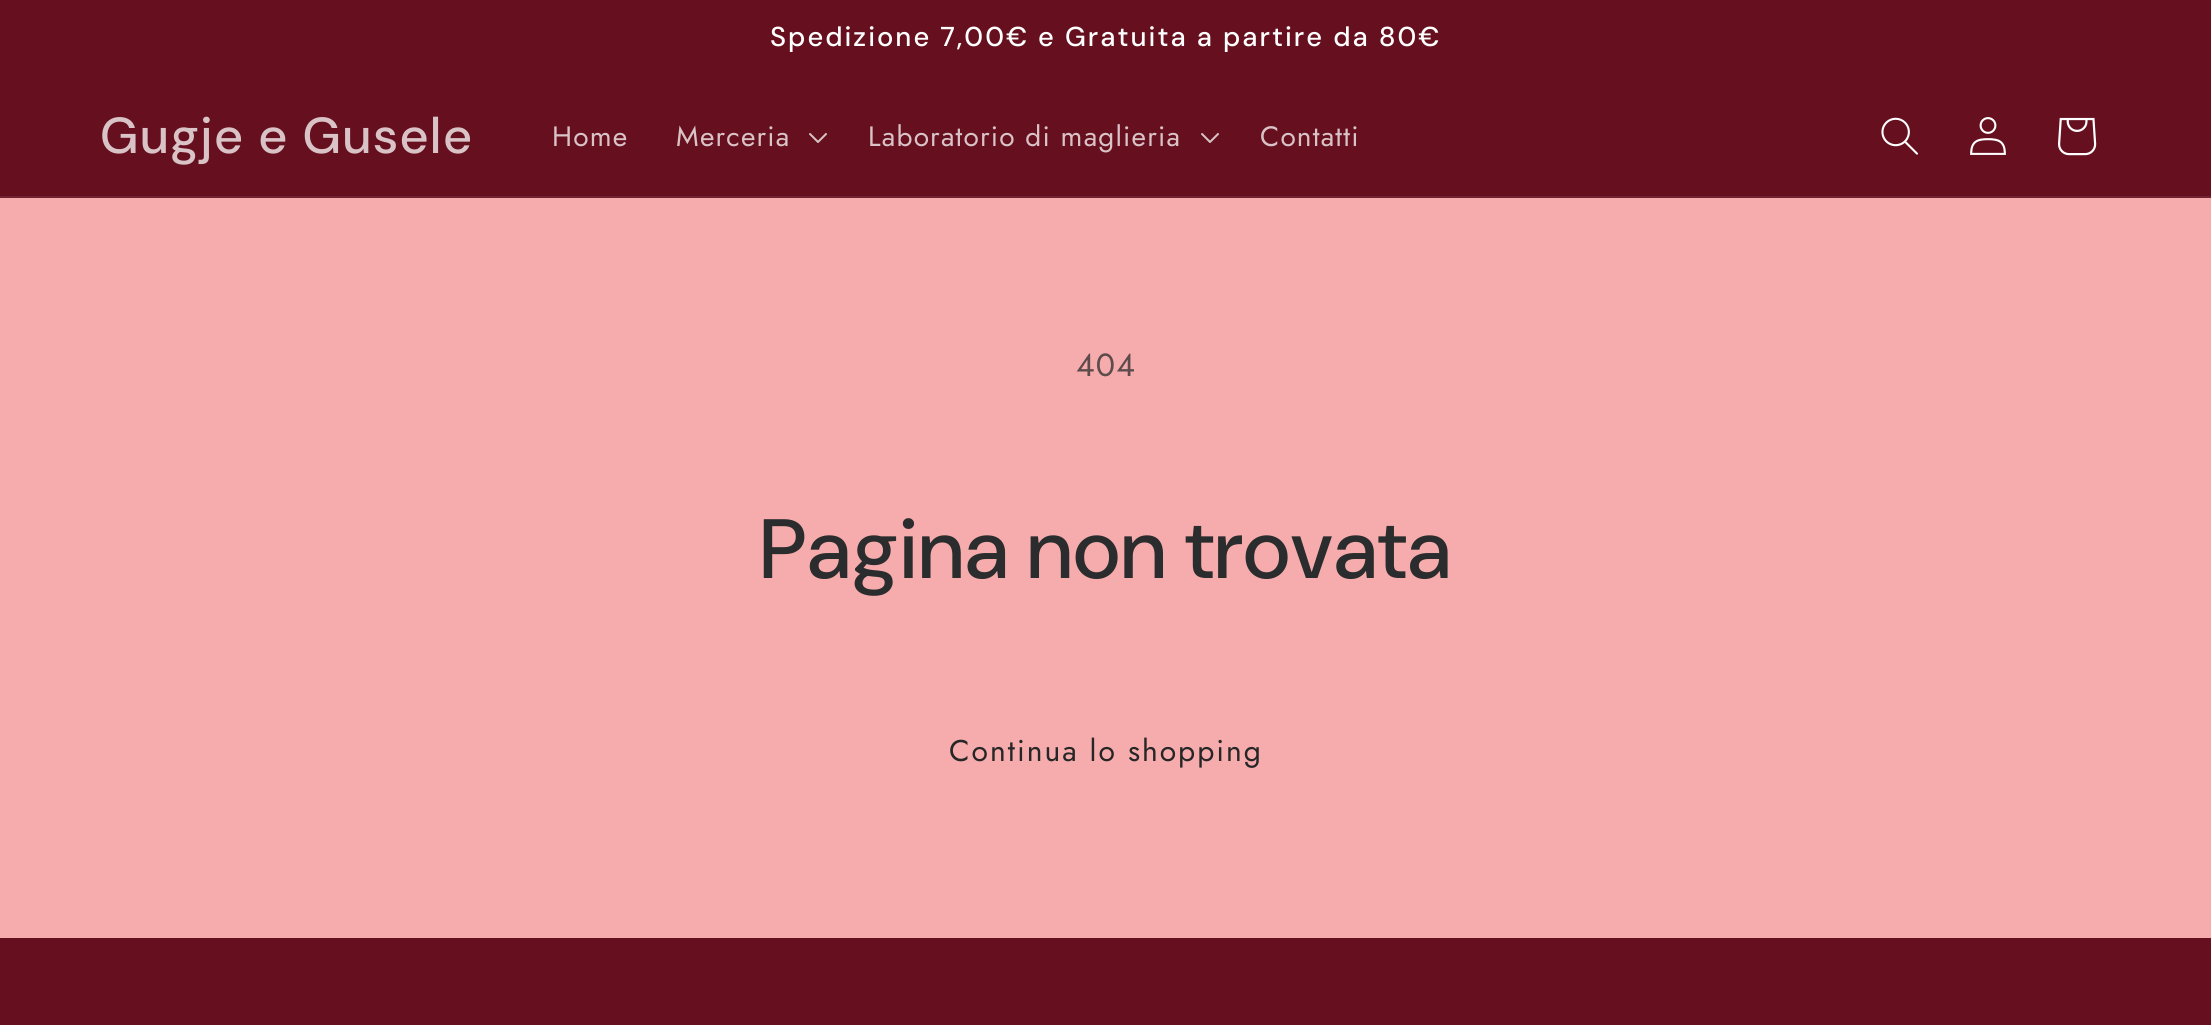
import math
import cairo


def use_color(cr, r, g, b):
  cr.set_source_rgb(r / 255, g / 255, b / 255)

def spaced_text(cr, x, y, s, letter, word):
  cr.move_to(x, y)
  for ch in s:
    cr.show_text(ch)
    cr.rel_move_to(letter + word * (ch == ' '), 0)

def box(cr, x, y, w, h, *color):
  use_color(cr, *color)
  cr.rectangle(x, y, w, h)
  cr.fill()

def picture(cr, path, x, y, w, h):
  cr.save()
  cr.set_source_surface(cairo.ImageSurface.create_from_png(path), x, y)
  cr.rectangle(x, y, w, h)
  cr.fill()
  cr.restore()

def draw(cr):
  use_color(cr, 246, 172, 172)
  cr.paint()
  box(cr, 0, 0, 2211, 196, 102, 16, 31)
  box(cr, 0, 196, 2211, 2, 114, 35, 49)
  picture(cr, "img_01.png", 809, 133, 18, 10)
  picture(cr, "img_01.png", 1201, 133, 18, 10)
  picture(cr, "img_02.png", 1881, 117, 37, 38)
  picture(cr, "img_03.png", 1970, 117, 36, 38)
  picture(cr, "img_04.png", 2058, 117, 39, 39)
  box(cr, 0, 938, 2211, 87, 102, 16, 31)
  cr.select_font_face("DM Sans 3 Medium")
  cr.set_font_size(27.3)
  use_color(cr, 255, 255, 255)
  spaced_text(cr, 770, 46, "Spedizione 7,00€ e Gratuita a partire da 80€", 2, 0)
  cr.select_font_face("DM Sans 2 Medium")
  cr.set_font_size(50.5)
  use_color(cr, 217, 195, 199)
  spaced_text(cr, 100, 153, "Gugje e Gusele", 1.25, 0)
  cr.select_font_face("Jost")
  cr.set_font_size(28)
  spaced_text(cr, 552, 146, "Home", 1.2, 0)
  spaced_text(cr, 676, 146, "Merceria", 1.2, 0)
  spaced_text(cr, 868, 146, "Laboratorio di maglieria", 1.2, 0)
  spaced_text(cr, 1260, 146, "Contatti", 1.2, 0)
  cr.set_font_size(32)
  use_color(cr, 94, 76, 77)
  spaced_text(cr, 1076, 376, "404", 1.2, 0)
  cr.select_font_face("DM Sans Medium")
  cr.set_font_size(84)
  use_color(cr, 43, 44, 45)
  spaced_text(cr, 760, 578, "Pagina non trovata", 1.25, 0)
  cr.select_font_face("Jost")
  cr.set_font_size(30)
  use_color(cr, 38, 38, 38)
  spaced_text(cr, 949, 761, "Continua lo shopping", 2, 0)


surface = cairo.ImageSurface(cairo.FORMAT_RGB24, 2211, 1025)
cr = cairo.Context(surface)
options = cairo.FontOptions()
options.set_hint_metrics(cairo.HINT_METRICS_OFF)
options.set_hint_style(cairo.HINT_STYLE_NONE)
cr.set_font_options(options)
cr.set_miter_limit(4)
draw(cr)
surface.write_to_png("out.png")
